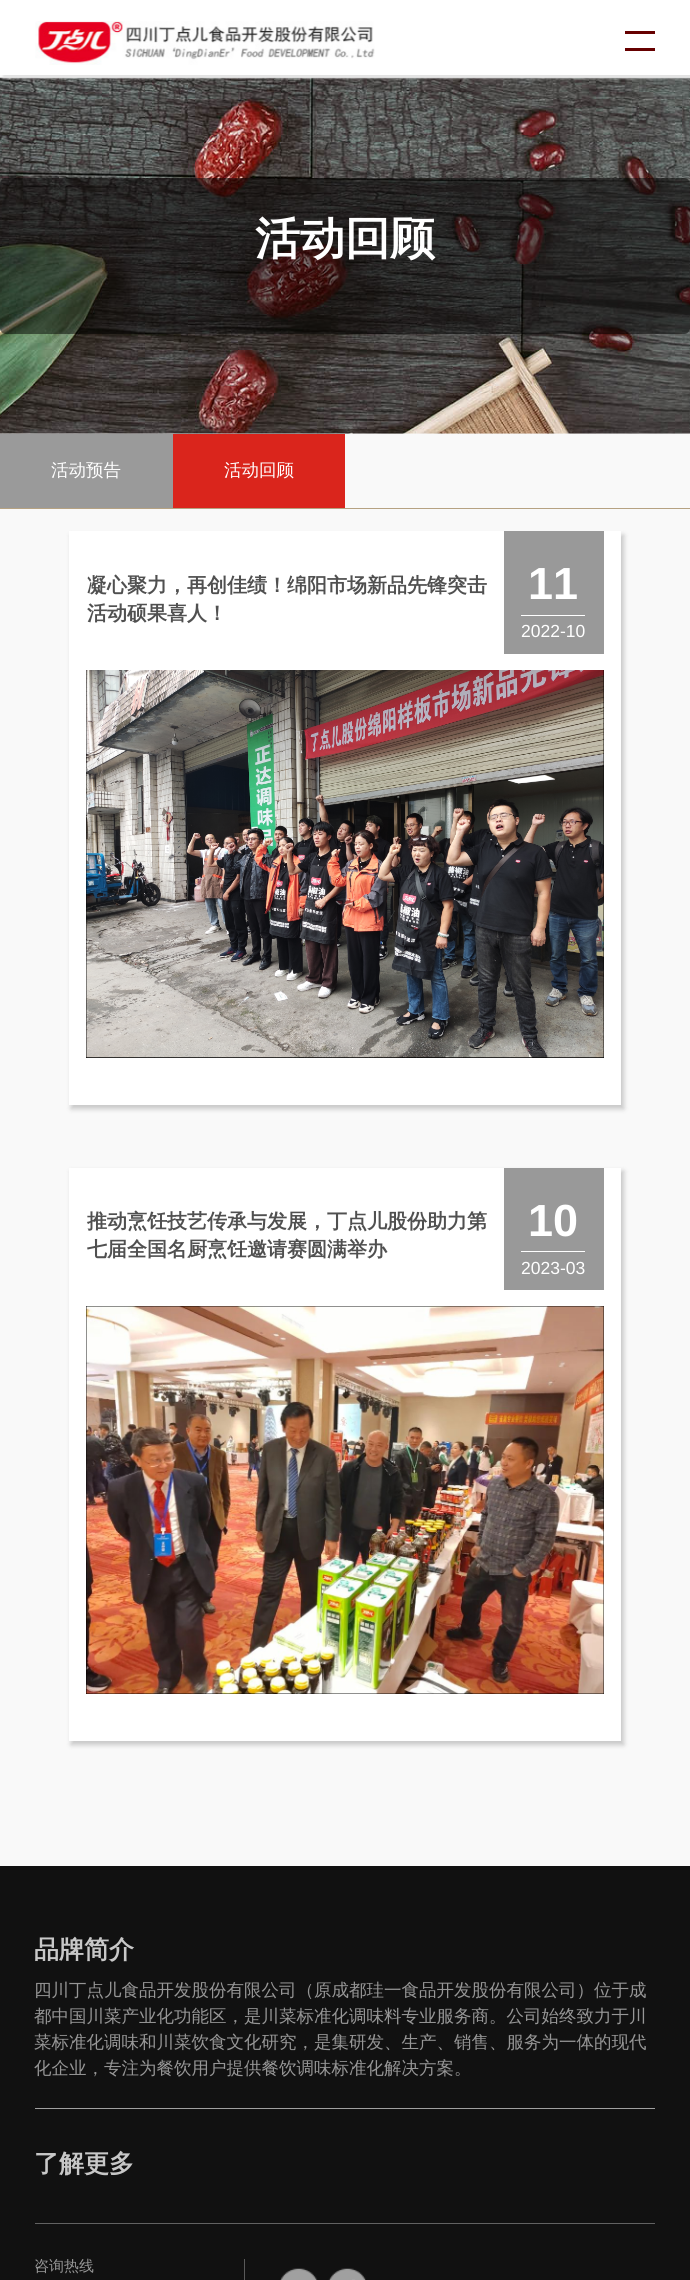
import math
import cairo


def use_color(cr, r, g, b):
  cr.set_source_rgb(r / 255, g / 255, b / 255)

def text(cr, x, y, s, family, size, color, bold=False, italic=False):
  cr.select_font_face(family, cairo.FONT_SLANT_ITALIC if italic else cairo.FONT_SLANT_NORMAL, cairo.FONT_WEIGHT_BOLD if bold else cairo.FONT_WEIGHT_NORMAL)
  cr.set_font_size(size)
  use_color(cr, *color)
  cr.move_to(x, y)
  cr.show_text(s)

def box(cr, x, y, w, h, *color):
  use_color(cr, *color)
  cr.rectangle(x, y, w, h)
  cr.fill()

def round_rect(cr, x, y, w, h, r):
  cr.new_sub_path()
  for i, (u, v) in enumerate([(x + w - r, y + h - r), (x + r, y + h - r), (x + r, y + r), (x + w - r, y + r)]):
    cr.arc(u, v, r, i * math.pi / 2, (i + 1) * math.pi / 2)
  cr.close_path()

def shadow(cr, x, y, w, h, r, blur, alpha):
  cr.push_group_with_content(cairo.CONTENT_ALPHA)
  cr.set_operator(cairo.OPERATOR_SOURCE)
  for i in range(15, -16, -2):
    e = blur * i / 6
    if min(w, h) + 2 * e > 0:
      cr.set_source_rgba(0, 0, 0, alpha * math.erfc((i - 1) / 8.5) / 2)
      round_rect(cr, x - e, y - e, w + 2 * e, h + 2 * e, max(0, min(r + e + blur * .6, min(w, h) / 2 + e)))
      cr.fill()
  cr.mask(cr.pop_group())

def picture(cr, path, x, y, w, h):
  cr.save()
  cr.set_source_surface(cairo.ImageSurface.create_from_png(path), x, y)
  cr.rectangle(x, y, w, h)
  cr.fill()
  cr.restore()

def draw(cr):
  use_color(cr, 249, 249, 249)
  cr.paint()
  picture(cr, "img_02.png", 0, 77, 690, 357)
  use_color(cr, 226, 226, 226)
  shadow(cr, 3, 3, 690, 75, 0, 1, 1)
  box(cr, 0, 0, 690, 75, 255, 255, 255)
  picture(cr, "img_01.png", 35, 21, 340, 44)
  box(cr, 625, 31, 30, 3, 102, 0, 0)
  box(cr, 625, 48, 30, 3, 102, 0, 0)
  cr.set_source_rgba(0, 0, 0, 0.5)
  round_rect(cr, 0, 178, 690, 156, 6)
  cr.fill()
  box(cr, 0, 508, 690, 1, 182, 162, 130)
  box(cr, 0, 434, 173, 74, 154, 154, 154)
  box(cr, 173, 434, 172, 74, 218, 37, 28)
  use_color(cr, 0, 0, 0)
  shadow(cr, 71, 535, 553, 574, 0, 2.5, 0.2)
  box(cr, 69, 531, 552, 574, 255, 255, 255)
  box(cr, 504, 531, 100, 123, 153, 153, 153)
  box(cr, 521, 615, 64, 1, 255, 255, 255)
  box(cr, 86, 670, 518, 388, 0, 0, 0)
  picture(cr, "img_03.png", 86, 670, 518, 388)
  use_color(cr, 0, 0, 0)
  shadow(cr, 71, 1171, 553, 574, 0, 2.5, 0.2)
  box(cr, 69, 1168, 552, 573, 255, 255, 255)
  box(cr, 504, 1168, 100, 122, 153, 153, 153)
  box(cr, 521, 1251, 64, 1, 255, 255, 255)
  box(cr, 86, 1306, 518, 388, 0, 0, 0)
  picture(cr, "img_04.png", 86, 1306, 518, 388)
  box(cr, 0, 1866, 690, 414, 17, 17, 17)
  box(cr, 35, 2108, 620, 1, 160, 160, 160)
  box(cr, 35, 2223, 620, 1, 98, 98, 98)
  box(cr, 244, 2259, 1, 21, 89, 89, 89)
  picture(cr, "img_05.png", 280, 2268, 38, 12)
  picture(cr, "img_06.png", 328, 2268, 38, 12)
  box(cr, 352, 2279, 3, 1, 165, 165, 165)
  text(cr, 255, 254, "活动回顾", "WenQuanYi Zen Hei", 45, (255, 255, 255), bold=True)
  text(cr, 51, 476, "活动预告", "WenQuanYi Zen Hei Medium", 17.5, (255, 255, 255))
  text(cr, 224, 476, "活动回顾", "WenQuanYi Zen Hei Medium", 17.5, (255, 255, 255))
  text(cr, 87, 592, "凝心聚力，再创佳绩！绵阳市场新品先锋突击", "WenQuanYi Zen Hei", 20, (80, 80, 80), bold=True)
  text(cr, 87, 620, "活动硕果喜人！", "WenQuanYi Zen Hei", 20, (80, 80, 80), bold=True)
  text(cr, 528, 599, "11", "Liberation Sans", 45, (255, 255, 255), bold=True)
  text(cr, 521, 637, "2022-10", "Liberation Sans", 17.5, (255, 255, 255))
  text(cr, 87, 1228, "推动烹饪技艺传承与发展，丁点儿股份助力第", "WenQuanYi Zen Hei", 20, (80, 80, 80), bold=True)
  text(cr, 87, 1256, "七届全国名厨烹饪邀请赛圆满举办", "WenQuanYi Zen Hei", 20, (80, 80, 80), bold=True)
  text(cr, 528, 1236, "10", "Liberation Sans", 45, (255, 255, 255), bold=True)
  text(cr, 521, 1274, "2023-03", "Liberation Sans", 17.5, (255, 255, 255))
  text(cr, 34, 1958, "品牌简介", "WenQuanYi Zen Hei", 25, (200, 200, 200), bold=True)
  text(cr, 34, 1996, "四川丁点儿食品开发股份有限公司（原成都珪一食品开发股份有限公司）位于成", "WenQuanYi Zen Hei Medium", 17.5, (150, 150, 150))
  text(cr, 34, 2022, "都中国川菜产业化功能区，是川菜标准化调味料专业服务商。公司始终致力于川", "WenQuanYi Zen Hei Medium", 17.5, (150, 150, 150))
  text(cr, 34, 2048, "菜标准化调味和川菜饮食文化研究，是集研发、生产、销售、服务为一体的现代", "WenQuanYi Zen Hei Medium", 17.5, (150, 150, 150))
  text(cr, 34, 2074, "化企业，专注为餐饮用户提供餐饮调味标准化解决方案。", "WenQuanYi Zen Hei Medium", 17.5, (150, 150, 150))
  text(cr, 34, 2172, "了解更多", "WenQuanYi Zen Hei", 25, (200, 200, 200), bold=True)
  text(cr, 34, 2271, "咨询热线", "WenQuanYi Zen Hei Medium", 15, (150, 150, 150))


surface = cairo.ImageSurface(cairo.FORMAT_RGB24, 690, 2280)
cr = cairo.Context(surface)
options = cairo.FontOptions()
options.set_hint_metrics(cairo.HINT_METRICS_OFF)
options.set_hint_style(cairo.HINT_STYLE_NONE)
cr.set_font_options(options)
cr.set_miter_limit(4)
draw(cr)
surface.write_to_png("out.png")
